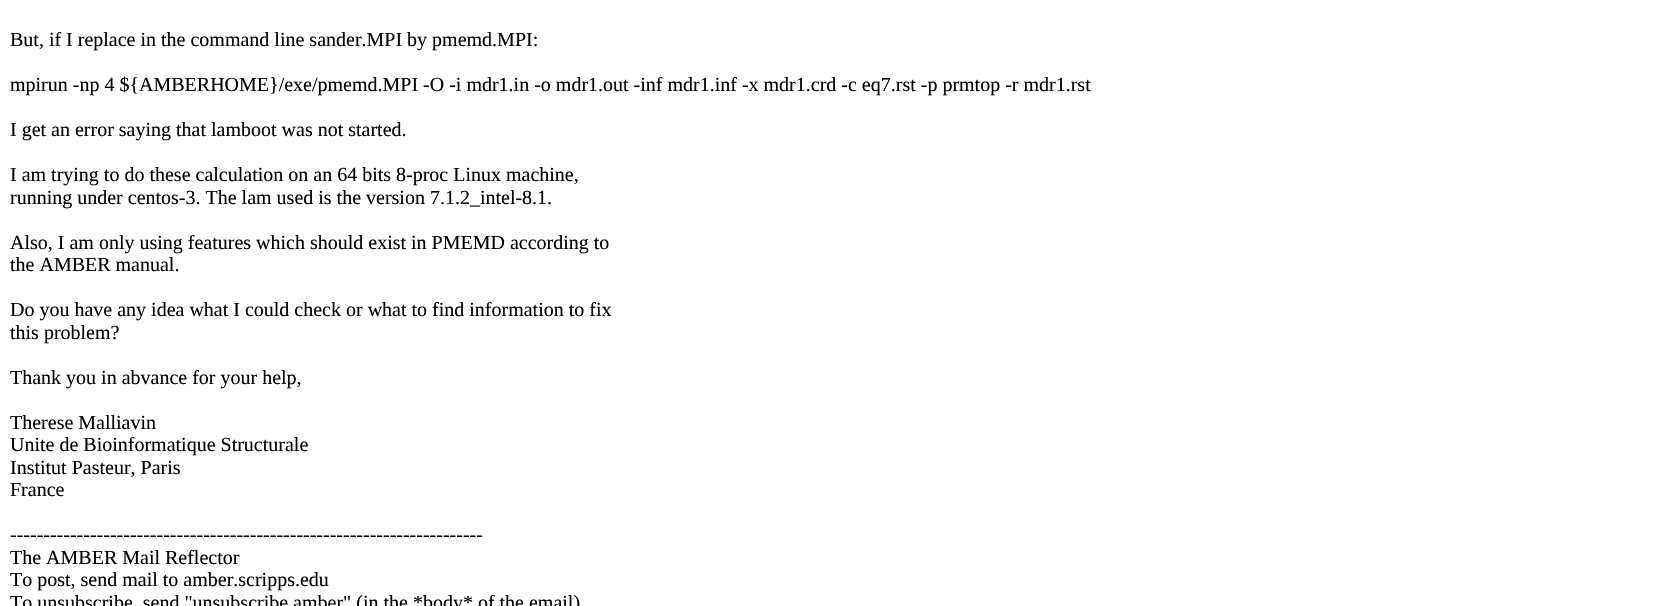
void draw(SkCanvas* canvas) {
    SkPaint paint;
    paint.setAntiAlias(true);
    canvas->clear(0xFFFFFFFF);
    SkFont font1(fontMgr->matchFamilyStyle("Liberation Serif", SkFontStyle::Normal()), 20);
    font1.setSubpixel(true);
    paint.setColor(0xFF000000);
    canvas->drawString("But, if I replace in the command line sander.MPI by pmemd.MPI:", 10, 46, font1, paint);
    canvas->drawString("mpirun -np 4 ${AMBERHOME}/exe/pmemd.MPI -O -i mdr1.in -o mdr1.out -inf mdr1.inf -x mdr1.crd -c eq7.rst -p prmtop -r mdr1.rst", 10, 91, font1, paint);
    canvas->drawString("I get an error saying that lamboot was not started.", 10, 136, font1, paint);
    canvas->drawString("I am trying to do these calculation on an 64 bits 8-proc Linux machine,", 10, 181, font1, paint);
    canvas->drawString("running under centos-3. The lam used is the version 7.1.2_intel-8.1.", 10, 204, font1, paint);
    canvas->drawString("Also, I am only using features which should exist in PMEMD according to", 10, 249, font1, paint);
    canvas->drawString("the AMBER manual.", 10, 271, font1, paint);
    canvas->drawString("Do you have any idea what I could check or what to find information to fix", 10, 316, font1, paint);
    canvas->drawString("this problem?", 10, 339, font1, paint);
    canvas->drawString("Thank you in abvance for your help,", 10, 384, font1, paint);
    canvas->drawString("Therese Malliavin", 10, 429, font1, paint);
    canvas->drawString("Unite de Bioinformatique Structurale", 10, 451, font1, paint);
    canvas->drawString("Institut Pasteur, Paris", 10, 474, font1, paint);
    canvas->drawString("France", 10, 496, font1, paint);
    canvas->drawString("-----------------------------------------------------------------------", 10, 541, font1, paint);
    canvas->drawString("The AMBER Mail Reflector", 10, 564, font1, paint);
    canvas->drawString("To post, send mail to amber.scripps.edu", 10, 586, font1, paint);
    canvas->drawString("To unsubscribe, send \"unsubscribe amber\" (in the *body* of the email)", 10, 609, font1, paint);
}
